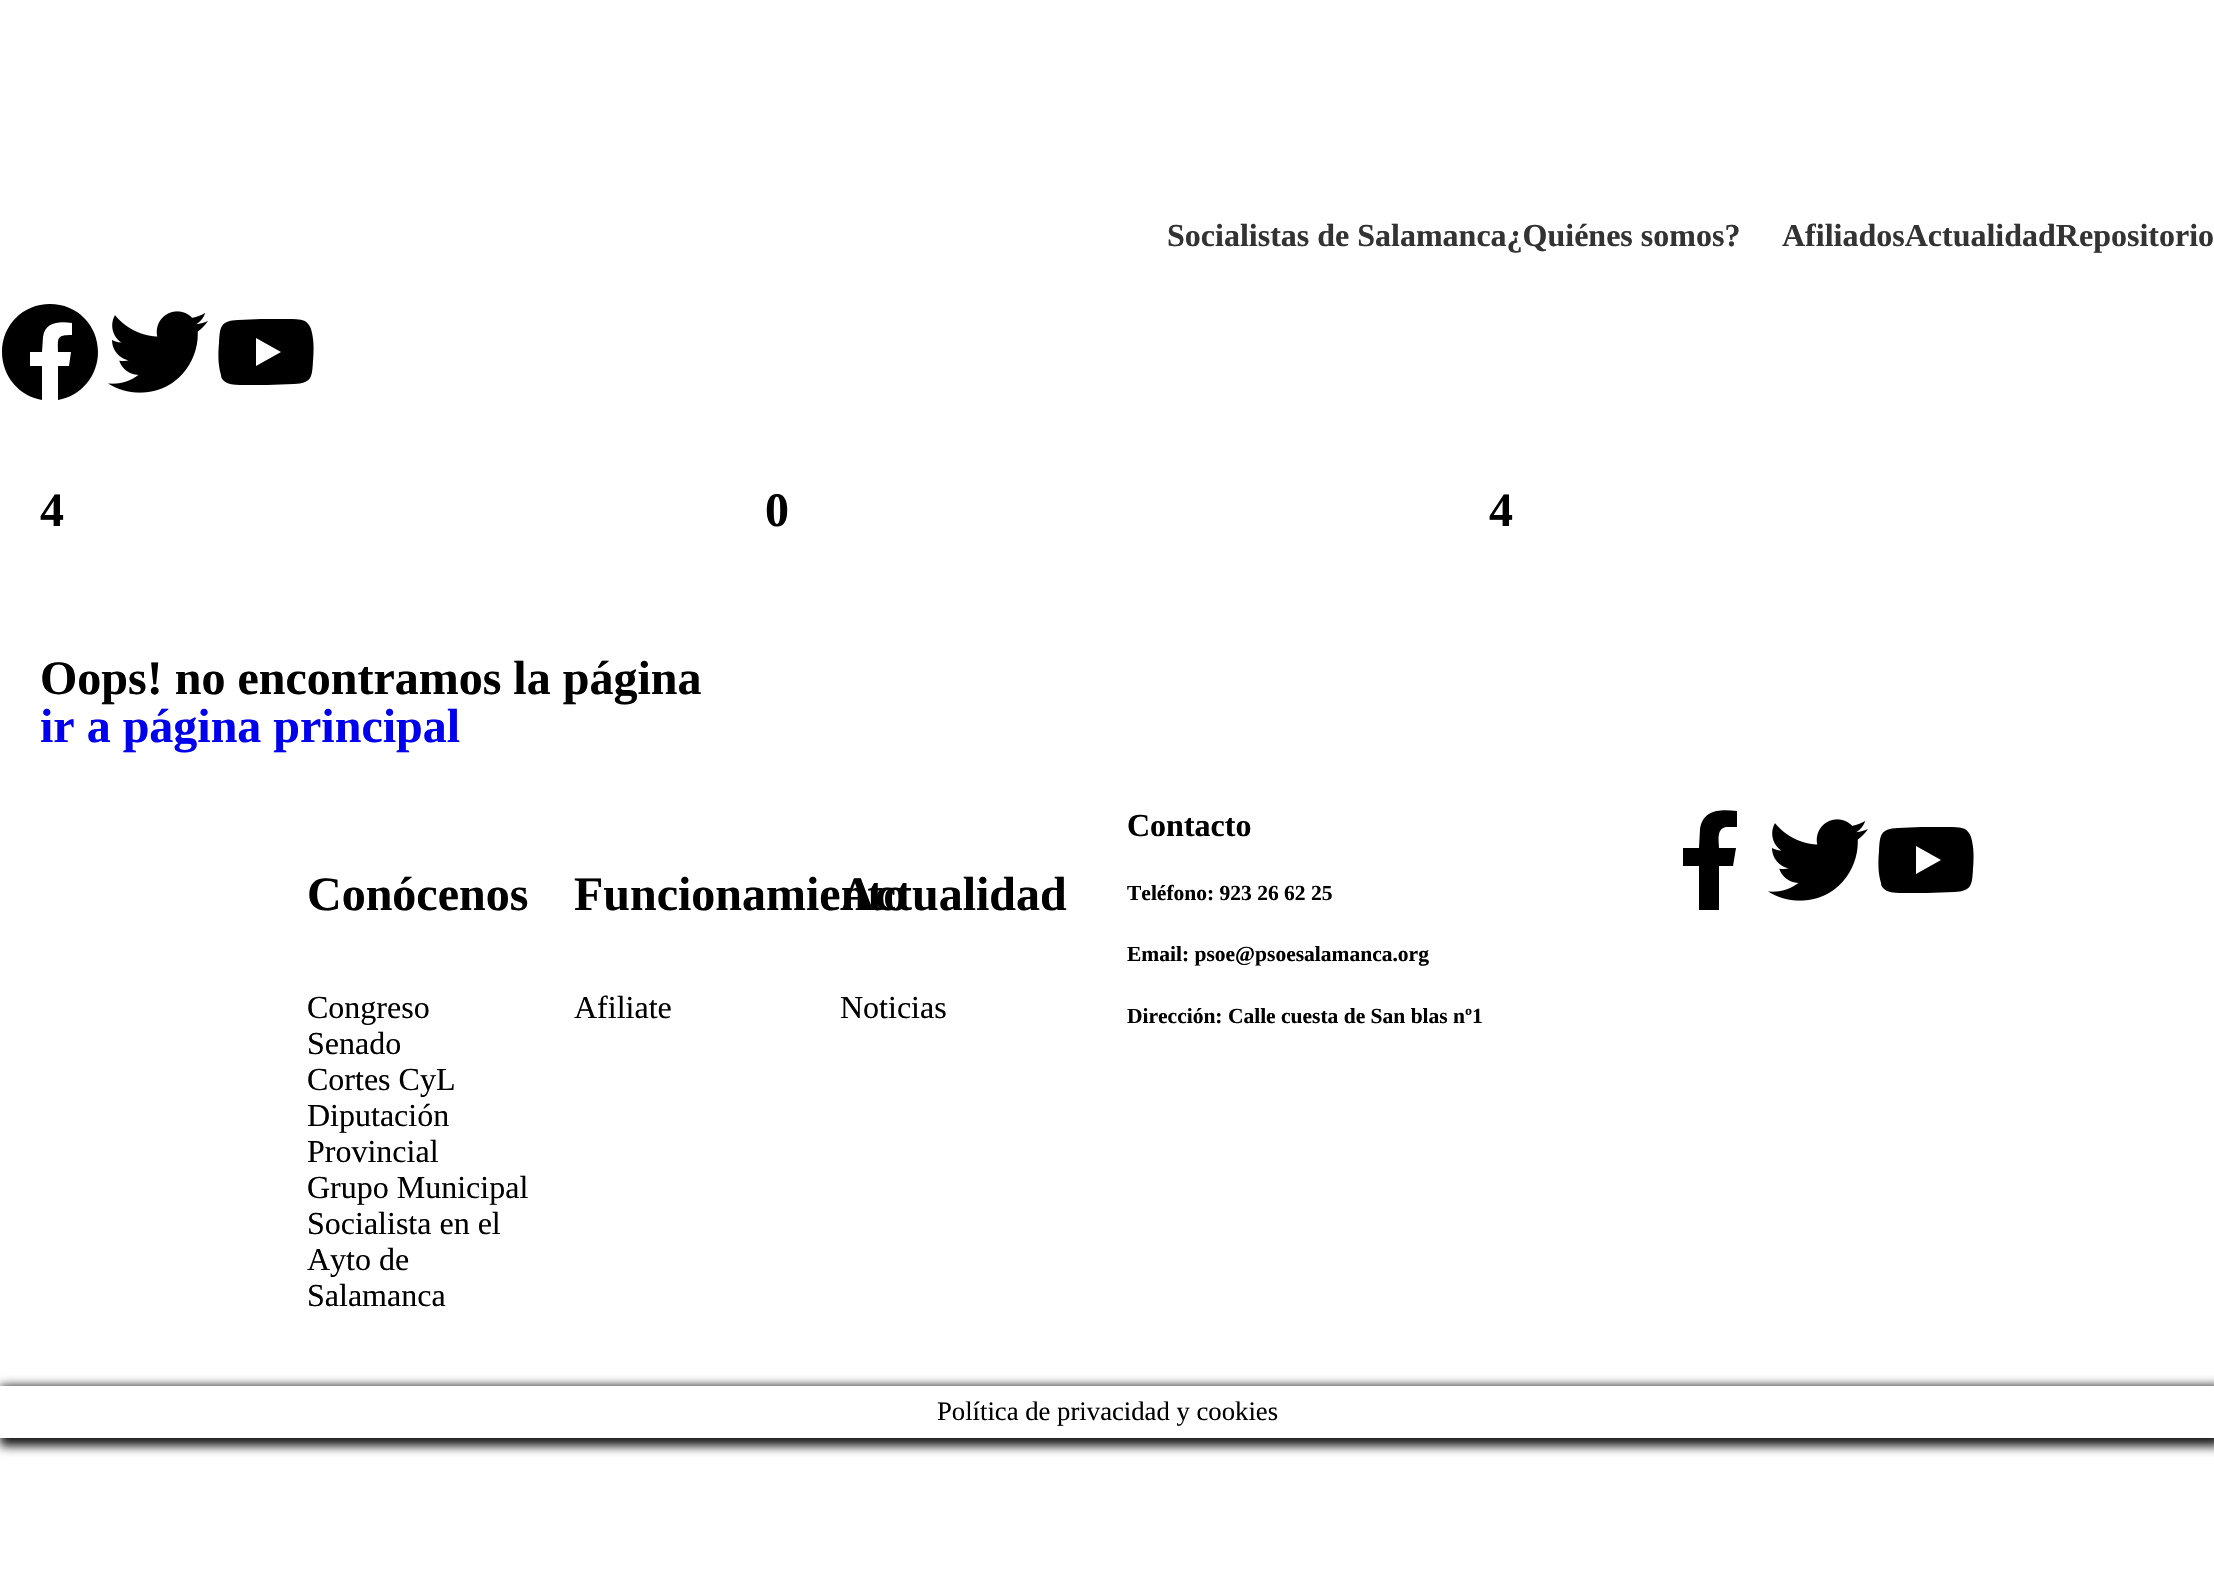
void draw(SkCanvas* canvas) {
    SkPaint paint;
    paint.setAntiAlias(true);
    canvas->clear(0xFFFFFFFF);
    SkFont font1(fontMgr->matchFamilyStyle("Liberation Serif", SkFontStyle::Bold()), 32);
    font1.setSubpixel(true);
    paint.setColor(0xFF333333);
    canvas->drawString("Socialistas de Salamanca¿Quiénes somos?", 1167, 246, font1, paint);
    canvas->drawString("AfiliadosActualidadRepositorio", 1782, 246, font1, paint);
    paint.setColor(0xFF000000);
    canvas->drawPath(SkPathBuilder().moveTo(98, 352).cubicTo(98, 325, 77, 304, 50, 304).cubicTo(23, 304, 2, 325, 2, 352).cubicTo(2, 376, 19, 396, 42, 400).lineTo(42, 366).lineTo(30, 366).lineTo(30, 352).lineTo(42, 352).lineTo(43, 337).cubicTo(45, 322, 59, 321, 72, 323).lineTo(72, 335).cubicTo(56, 335, 58, 338, 58, 352).lineTo(71, 352).lineTo(69, 366).lineTo(58, 366).lineTo(58, 400).cubicTo(81, 396, 98, 376, 98, 352).close().detach(), paint);
    canvas->drawImageRect(SkImages::DeferredFromEncodedData(SkData::MakeFromFileName("img1.png")), SkRect::MakeXYWH(108, 311, 100, 82), SkSamplingOptions());
    canvas->drawPath(SkPathBuilder().moveTo(311, 329).cubicTo(310, 326, 308, 323, 305, 321).cubicTo(300, 319, 293, 319, 288, 319).lineTo(261, 319).lineTo(238, 320).cubicTo(220, 321, 220, 327, 219, 343).cubicTo(218, 354, 218, 365, 221, 375).cubicTo(221, 379, 224, 381, 227, 383).cubicTo(232, 385, 239, 385, 244, 385).lineTo(267, 385).lineTo(294, 384).cubicTo(312, 383, 312, 377, 313, 361).cubicTo(314, 350, 314, 339, 311, 329).close().moveTo(256, 366).lineTo(256, 338).lineTo(281, 352).close().detach(), paint);
    SkFont font2(fontMgr->matchFamilyStyle("Liberation Serif", SkFontStyle::Bold()), 48);
    font2.setSubpixel(true);
    canvas->drawString("4", 40, 526, font2, paint);
    canvas->drawString("0", 765, 526, font2, paint);
    canvas->drawString("4", 1489, 526, font2, paint);
    canvas->drawString("Oops! no encontramos la página", 40, 694, font2, paint);
    paint.setColor(0xFF0000EE);
    canvas->drawString("ir a página principal", 40, 742, font2, paint);
    paint.setColor(0xFF000000);
    canvas->drawString("Conócenos", 307, 910, font2, paint);
    SkFont font3(fontMgr->matchFamilyStyle("Liberation Serif", SkFontStyle::Normal()), 32);
    font3.setSubpixel(true);
    canvas->drawString("Congreso", 307, 1018, font3, paint);
    canvas->drawString("Senado", 307, 1054, font3, paint);
    canvas->drawString("Cortes CyL", 307, 1090, font3, paint);
    canvas->drawString("Diputación", 307, 1126, font3, paint);
    canvas->drawString("Provincial", 307, 1162, font3, paint);
    canvas->drawString("Grupo Municipal", 307, 1198, font3, paint);
    canvas->drawString("Socialista en el", 307, 1234, font3, paint);
    canvas->drawString("Ayto de", 307, 1270, font3, paint);
    canvas->drawString("Salamanca", 307, 1306, font3, paint);
    canvas->drawString("Funcionamiento", 574, 910, font2, paint);
    canvas->drawString("Afiliate", 574, 1018, font3, paint);
    canvas->drawString("Actualidad", 840, 910, font2, paint);
    canvas->drawString("Noticias", 840, 1018, font3, paint);
    canvas->drawString("Contacto", 1127, 836, font1, paint);
    SkFont font4(fontMgr->matchFamilyStyle("Liberation Serif", SkFontStyle::Bold()), 21.5f);
    font4.setSubpixel(true);
    canvas->drawString("Teléfono: 923 26 62 25", 1127, 900, font4, paint);
    canvas->drawString("Email: psoe@psoesalamanca.org", 1127, 961, font4, paint);
    canvas->drawString("Dirección: Calle cuesta de San blas nº1", 1127, 1023, font4, paint);
    canvas->drawPath(SkPathBuilder().moveTo(1733, 866).lineTo(1736, 848).lineTo(1719, 848).cubicTo(1719, 841, 1716, 829, 1726, 827).lineTo(1737, 827).lineTo(1737, 811).cubicTo(1721, 809, 1703, 809, 1700, 829).lineTo(1699, 848).lineTo(1683, 848).lineTo(1683, 866).lineTo(1699, 866).lineTo(1699, 910).lineTo(1719, 910).lineTo(1719, 866).close().detach(), paint);
    canvas->drawImageRect(SkImages::DeferredFromEncodedData(SkData::MakeFromFileName("img1.png")), SkRect::MakeXYWH(1768, 819, 100, 82), SkSamplingOptions());
    canvas->drawPath(SkPathBuilder().moveTo(1971, 837).cubicTo(1970, 834, 1968, 831, 1965, 829).cubicTo(1960, 827, 1953, 827, 1948, 827).lineTo(1921, 827).lineTo(1898, 828).cubicTo(1880, 829, 1880, 835, 1879, 851).cubicTo(1878, 862, 1878, 873, 1881, 883).cubicTo(1881, 887, 1884, 889, 1887, 891).cubicTo(1892, 893, 1899, 893, 1904, 893).lineTo(1927, 893).lineTo(1954, 892).cubicTo(1972, 891, 1972, 885, 1973, 869).cubicTo(1974, 858, 1974, 847, 1971, 837).close().moveTo(1916, 874).lineTo(1916, 846).lineTo(1941, 860).close().detach(), paint);
    canvas->save();
    canvas->clipPath(SkPathBuilder(SkPathFillType::kEvenOdd).moveTo(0, 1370).lineTo(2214, 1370).lineTo(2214, 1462).lineTo(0, 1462).close().moveTo(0, 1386).lineTo(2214, 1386).lineTo(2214, 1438).lineTo(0, 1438).close().detach(), true);
    paint.setColor(0xFF161616);
    paint.setMaskFilter(SkMaskFilter::MakeBlur(kNormal_SkBlurStyle, 5));
    canvas->drawRect(SkRect::MakeXYWH(0, 1386, 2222, 60), paint);
    paint.setMaskFilter(nullptr);
    canvas->restore();
    SkFont font5(fontMgr->matchFamilyStyle("Liberation Serif", SkFontStyle::Normal()), 26.7f);
    font5.setSubpixel(true);
    paint.setColor(0xFF000000);
    canvas->drawString("Política de privacidad y cookies", 937, 1420, font5, paint);
}
